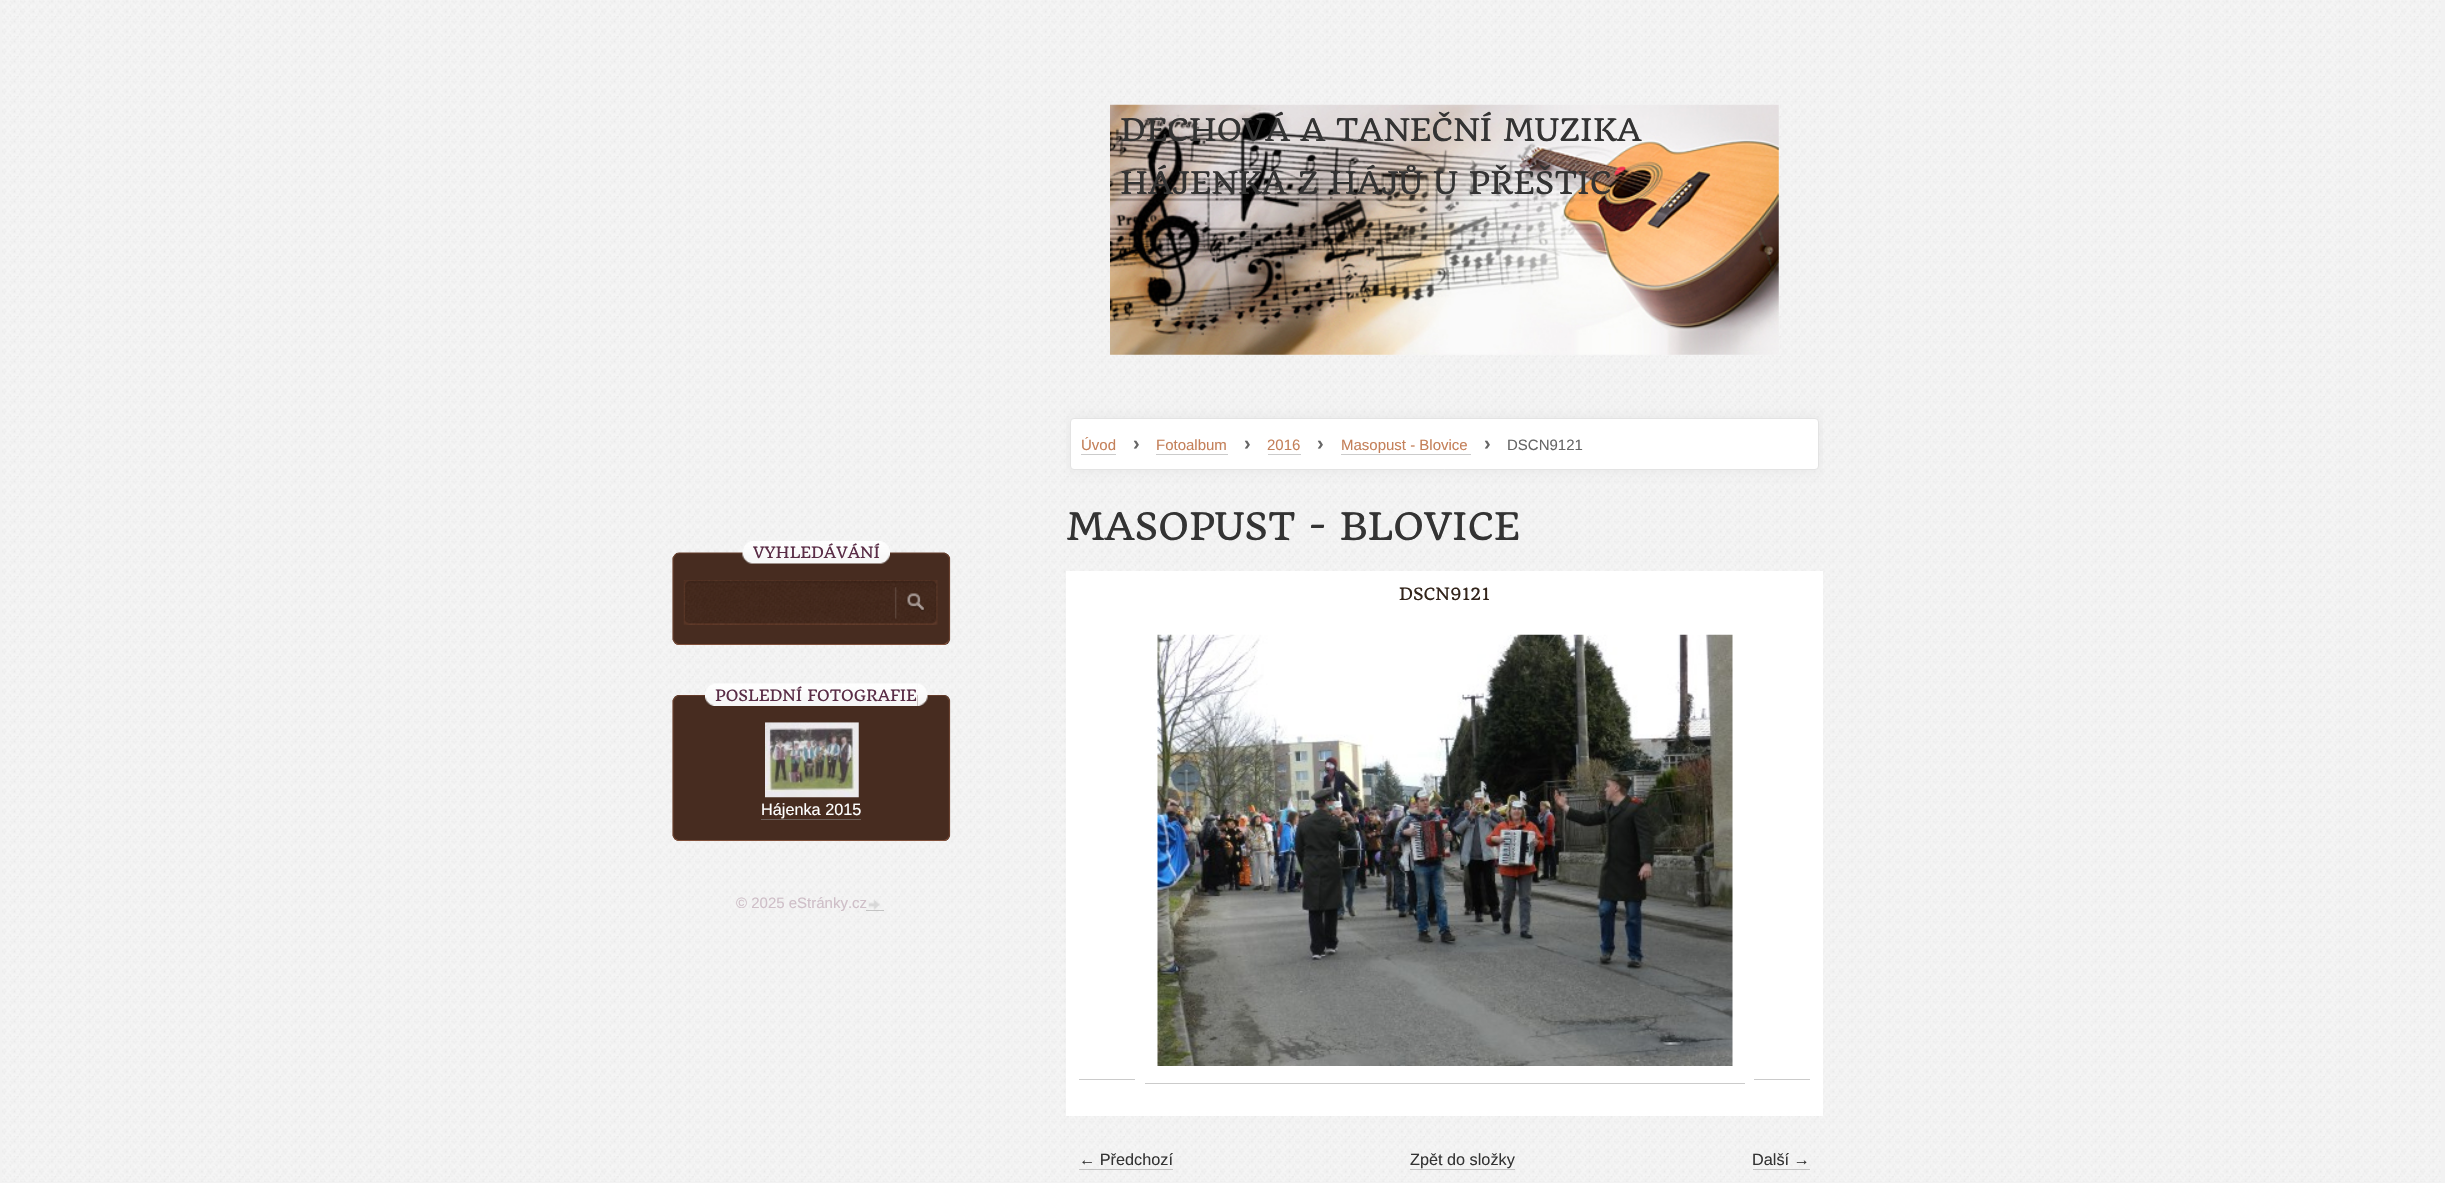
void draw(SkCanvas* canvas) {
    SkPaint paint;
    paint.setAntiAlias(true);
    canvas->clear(0xFFF2F2F2);
    canvas->drawImageRect(SkImages::DeferredFromEncodedData(SkData::MakeFromFileName("img1.png")), SkRect::MakeXYWH(2, 0, 2439, 1182), SkSamplingOptions());
    paint.setColor(0xFF472C20);
    canvas->drawRoundRect(SkRect::MakeXYWH(673, 553, 277, 92), 6, 6, paint);
    paint.setStyle(SkPaint::kStroke_Style);
    paint.setStrokeWidth(1.2f);
    paint.setColor(0xFF633B2A);
    canvas->drawPath(SkPathBuilder().moveTo(675, 555).cubicTo(676, 553.5f, 677.5f, 553, 679, 553).lineTo(944.5f, 553).lineTo(947.5f, 555).detach(), paint);
    paint.setColor(0xFF6A402D);
    canvas->drawPath(SkPathBuilder().moveTo(947.5f, 555).lineTo(949.5f, 558).lineTo(949.5f, 639.5f).lineTo(947.5f, 642.5f).detach(), paint);
    paint.setColor(0xFF82513B);
    canvas->drawPath(SkPathBuilder().moveTo(947.5f, 642.5f).lineTo(944.5f, 644.5f).lineTo(679, 644.5f).cubicTo(677.5f, 644.5f, 676, 644, 675, 642.5f).detach(), paint);
    paint.setColor(0xFF6A402D);
    canvas->drawPath(SkPathBuilder().moveTo(675, 642.5f).lineTo(673, 639.5f).lineTo(673, 558).lineTo(675, 555).detach(), paint);
    canvas->drawImageRect(SkImages::DeferredFromEncodedData(SkData::MakeFromFileName("img2.png")), SkRect::MakeXYWH(742, 541, 138, 23), SkSamplingOptions());
    SkFont font1(fontMgr->matchFamilyStyle("Quando", SkFontStyle::Normal()), 17.5f);
    font1.setSubpixel(true);
    paint.setStyle(SkPaint::kFill_Style);
    paint.setColor(0xFF592C46);
    canvas->drawString("VYHLEDÁVÁNÍ", 753, 558, font1, paint);
    canvas->drawImageRect(SkImages::DeferredFromEncodedData(SkData::MakeFromFileName("img3.png")), SkRect::MakeXYWH(880, 541, 10, 23), SkSamplingOptions());
    canvas->drawImageRect(SkImages::DeferredFromEncodedData(SkData::MakeFromFileName("img4.png")), SkRect::MakeXYWH(683, 580, 211, 45), SkSamplingOptions());
    canvas->drawImageRect(SkImages::DeferredFromEncodedData(SkData::MakeFromFileName("img5.png")), SkRect::MakeXYWH(894, 580, 44, 45), SkSamplingOptions());
    paint.setColor(0xFF472C20);
    canvas->drawRoundRect(SkRect::MakeXYWH(673, 695, 277, 146), 6, 6, paint);
    paint.setStyle(SkPaint::kStroke_Style);
    paint.setColor(0xFF633B2A);
    canvas->drawPath(SkPathBuilder().moveTo(675, 697.5f).lineTo(678, 695.5f).lineTo(944, 695.5f).cubicTo(945, 695.5f, 946.5f, 696, 947.5f, 697.5f).detach(), paint);
    paint.setColor(0xFF6A402D);
    canvas->drawPath(SkPathBuilder().moveTo(947.5f, 697.5f).lineTo(949.5f, 700.5f).lineTo(949.5f, 835.5f).lineTo(947.5f, 839).detach(), paint);
    paint.setColor(0xFF82513B);
    canvas->drawPath(SkPathBuilder().moveTo(947.5f, 839).cubicTo(946.5f, 840, 945, 840.5f, 944, 840.5f).lineTo(678, 840.5f).lineTo(675, 839).detach(), paint);
    paint.setColor(0xFF6A402D);
    canvas->drawPath(SkPathBuilder().moveTo(675, 839).lineTo(673, 835.5f).lineTo(673, 700.5f).lineTo(675, 697.5f).detach(), paint);
    canvas->drawImageRect(SkImages::DeferredFromEncodedData(SkData::MakeFromFileName("img6.png")), SkRect::MakeXYWH(705, 683, 213, 23), SkSamplingOptions());
    paint.setStyle(SkPaint::kFill_Style);
    paint.setColor(0xFF592C46);
    canvas->drawString("POSLEDNÍ FOTOGRAFIE", 715, 701, font1, paint);
    canvas->drawImageRect(SkImages::DeferredFromEncodedData(SkData::MakeFromFileName("img7.png")), SkRect::MakeXYWH(917, 683, 11, 23), SkSamplingOptions());
    canvas->drawImageRect(SkImages::DeferredFromEncodedData(SkData::MakeFromFileName("img8.png")), SkRect::MakeXYWH(765, 722, 94, 76), SkSamplingOptions());
    SkFont font2(fontMgr->matchFamilyStyle("Liberation Sans", SkFontStyle::Normal()), 16.25f);
    font2.setSubpixel(true);
    paint.setColor(0xFFFFFFFF);
    canvas->drawString("Hájenka 2015", 761, 815, font2, paint);
    paint.setColor(0xFF6F615B);
    canvas->drawRect(SkRect::MakeXYWH(761, 819, 100, 1), paint);
    SkFont font3(fontMgr->matchFamilyStyle("Liberation Sans", SkFontStyle::Normal()), 15);
    font3.setSubpixel(true);
    paint.setColor(0xFFCFBFC8);
    canvas->drawString("© 2025 eStránky.cz", 736, 908, font3, paint);
    canvas->drawImageRect(SkImages::DeferredFromEncodedData(SkData::MakeFromFileName("img9.png")), SkRect::MakeXYWH(868, 899, 12, 11), SkSamplingOptions());
    paint.setColor(0x80969696);
    canvas->drawRect(SkRect::MakeXYWH(866, 910, 18, 1), paint);
    canvas->drawImageRect(SkImages::DeferredFromEncodedData(SkData::MakeFromFileName("img10.png")), SkRect::MakeXYWH(1110, 104, 669, 251), SkSamplingOptions());
    SkFont font4(fontMgr->matchFamilyStyle("Quando", SkFontStyle::Normal()), 35);
    font4.setSubpixel(true);
    paint.setColor(0xFF333333);
    canvas->drawString("DECHOVÁ A TANEČNÍ MUZIKA", 1120, 141, font4, paint);
    canvas->drawString("HÁJENKA Z HÁJŮ U PŘEŠTIC", 1120, 194, font4, paint);
    canvas->save();
    canvas->clipRect(SkRect::MakeXYWH(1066, 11, 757, 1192));
    paint.setColor(0xFFE6E6E6);
    paint.setMaskFilter(SkMaskFilter::MakeBlur(kNormal_SkBlurStyle, 6));
    canvas->drawRoundRect(SkRect::MakeXYWH(1070, 418, 749, 52), 4, 4, paint);
    paint.setMaskFilter(nullptr);
    canvas->restore();
    paint.setColor(0xFFFFFFFF);
    canvas->drawRoundRect(SkRect::MakeXYWH(1070.5f, 418.5f, 748, 51), 3.5f, 3.5f, paint);
    paint.setStyle(SkPaint::kStroke_Style);
    paint.setStrokeWidth(1);
    paint.setColor(0xFFE3E3E3);
    canvas->drawRoundRect(SkRect::MakeXYWH(1070.5f, 418.5f, 748, 51), 3.5f, 3.5f, paint);
    paint.setStyle(SkPaint::kFill_Style);
    paint.setColor(0xFFC48059);
    canvas->drawString("Úvod", 1081, 450, font3, paint);
    paint.setColor(0xFFCBCBCB);
    canvas->drawRect(SkRect::MakeXYWH(1081, 454, 35, 1), paint);
    SkFont font5(fontMgr->matchFamilyStyle("Liberation Sans", SkFontStyle::Bold()), 20);
    font5.setSubpixel(true);
    paint.setColor(0xFF666666);
    canvas->drawString("›", 1133, 450, font5, paint);
    paint.setColor(0xFFC48059);
    canvas->drawString("Fotoalbum", 1156, 450, font3, paint);
    paint.setColor(0xFFCBCBCB);
    canvas->drawRect(SkRect::MakeXYWH(1156, 454, 72, 1), paint);
    paint.setColor(0xFF666666);
    canvas->drawString("›", 1244, 450, font5, paint);
    paint.setColor(0xFFC48059);
    canvas->drawString("2016", 1267, 450, font3, paint);
    paint.setColor(0xFFCBCBCB);
    canvas->drawRect(SkRect::MakeXYWH(1268, 454, 33, 1), paint);
    paint.setColor(0xFF666666);
    canvas->drawString("›", 1317, 450, font5, paint);
    paint.setColor(0xFFC48059);
    canvas->drawString("Masopust - Blovice", 1341, 450, font3, paint);
    paint.setColor(0xFFCBCBCB);
    canvas->drawRect(SkRect::MakeXYWH(1341, 454, 130, 1), paint);
    paint.setColor(0xFF666666);
    canvas->drawString("›", 1484, 450, font5, paint);
    canvas->drawString("DSCN9121", 1507, 450, font3, paint);
    SkFont font6(fontMgr->matchFamilyStyle("Quando", SkFontStyle::Normal()), 42.5f);
    font6.setSubpixel(true);
    paint.setColor(0xFF333333);
    canvas->drawString("MASOPUST - BLOVICE", 1066, 540, font6, paint);
    paint.setColor(0xFFFFFFFF);
    canvas->drawRect(SkRect::MakeXYWH(1066, 571, 757, 545), paint);
    SkFont font7(fontMgr->matchFamilyStyle("Quando", SkFontStyle::Normal()), 19);
    font7.setSubpixel(true);
    paint.setColor(0xFF33251B);
    canvas->drawString("DSCN9121", 1399, 600, font7, paint);
    canvas->drawImageRect(SkImages::DeferredFromEncodedData(SkData::MakeFromFileName("img11.png")), SkRect::MakeXYWH(1157, 634, 576, 432), SkSamplingOptions());
    paint.setColor(0xFFCBCBCB);
    canvas->drawRect(SkRect::MakeXYWH(1079, 1079, 56, 1), paint);
    canvas->drawRect(SkRect::MakeXYWH(1754, 1079, 56, 1), paint);
    canvas->drawRect(SkRect::MakeXYWH(1145, 1083, 600, 1), paint);
    paint.setColor(0xFF333333);
    canvas->drawString("← Předchozí", 1079, 1165, font2, paint);
    paint.setColor(0x80969696);
    canvas->drawRect(SkRect::MakeXYWH(1079, 1169, 94, 1), paint);
    paint.setColor(0xFF333333);
    canvas->drawString("Zpět do složky", 1410, 1165, font2, paint);
    paint.setColor(0x80969696);
    canvas->drawRect(SkRect::MakeXYWH(1410, 1169, 105, 1), paint);
    paint.setColor(0xFF333333);
    canvas->drawString("Další →", 1752, 1165, font2, paint);
    paint.setColor(0x80969696);
    canvas->drawRect(SkRect::MakeXYWH(1753, 1169, 57, 1), paint);
}
